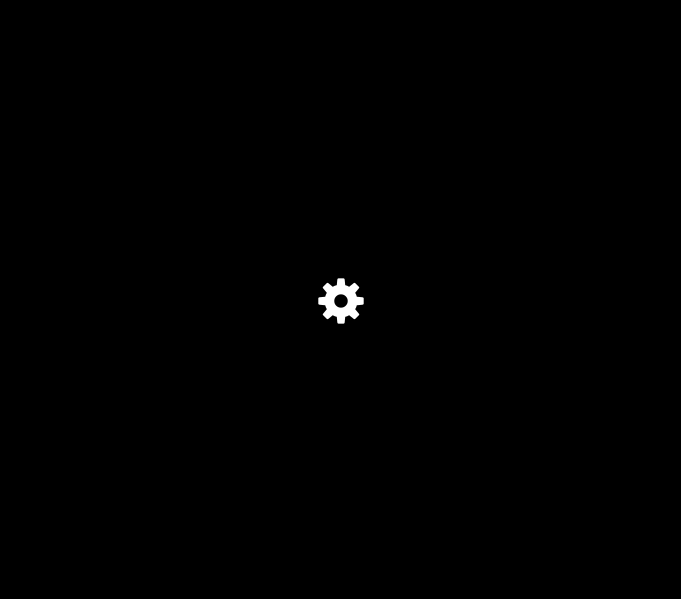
void draw(SkCanvas* canvas) {
    SkPaint paint;
    paint.setAntiAlias(true);
    canvas->clear(0xFF000000);
    canvas->drawImageRect(SkImages::DeferredFromEncodedData(SkData::MakeFromFileName("img1.png")), SkRect::MakeXYWH(318, 278, 46, 46), SkSamplingOptions());
}
